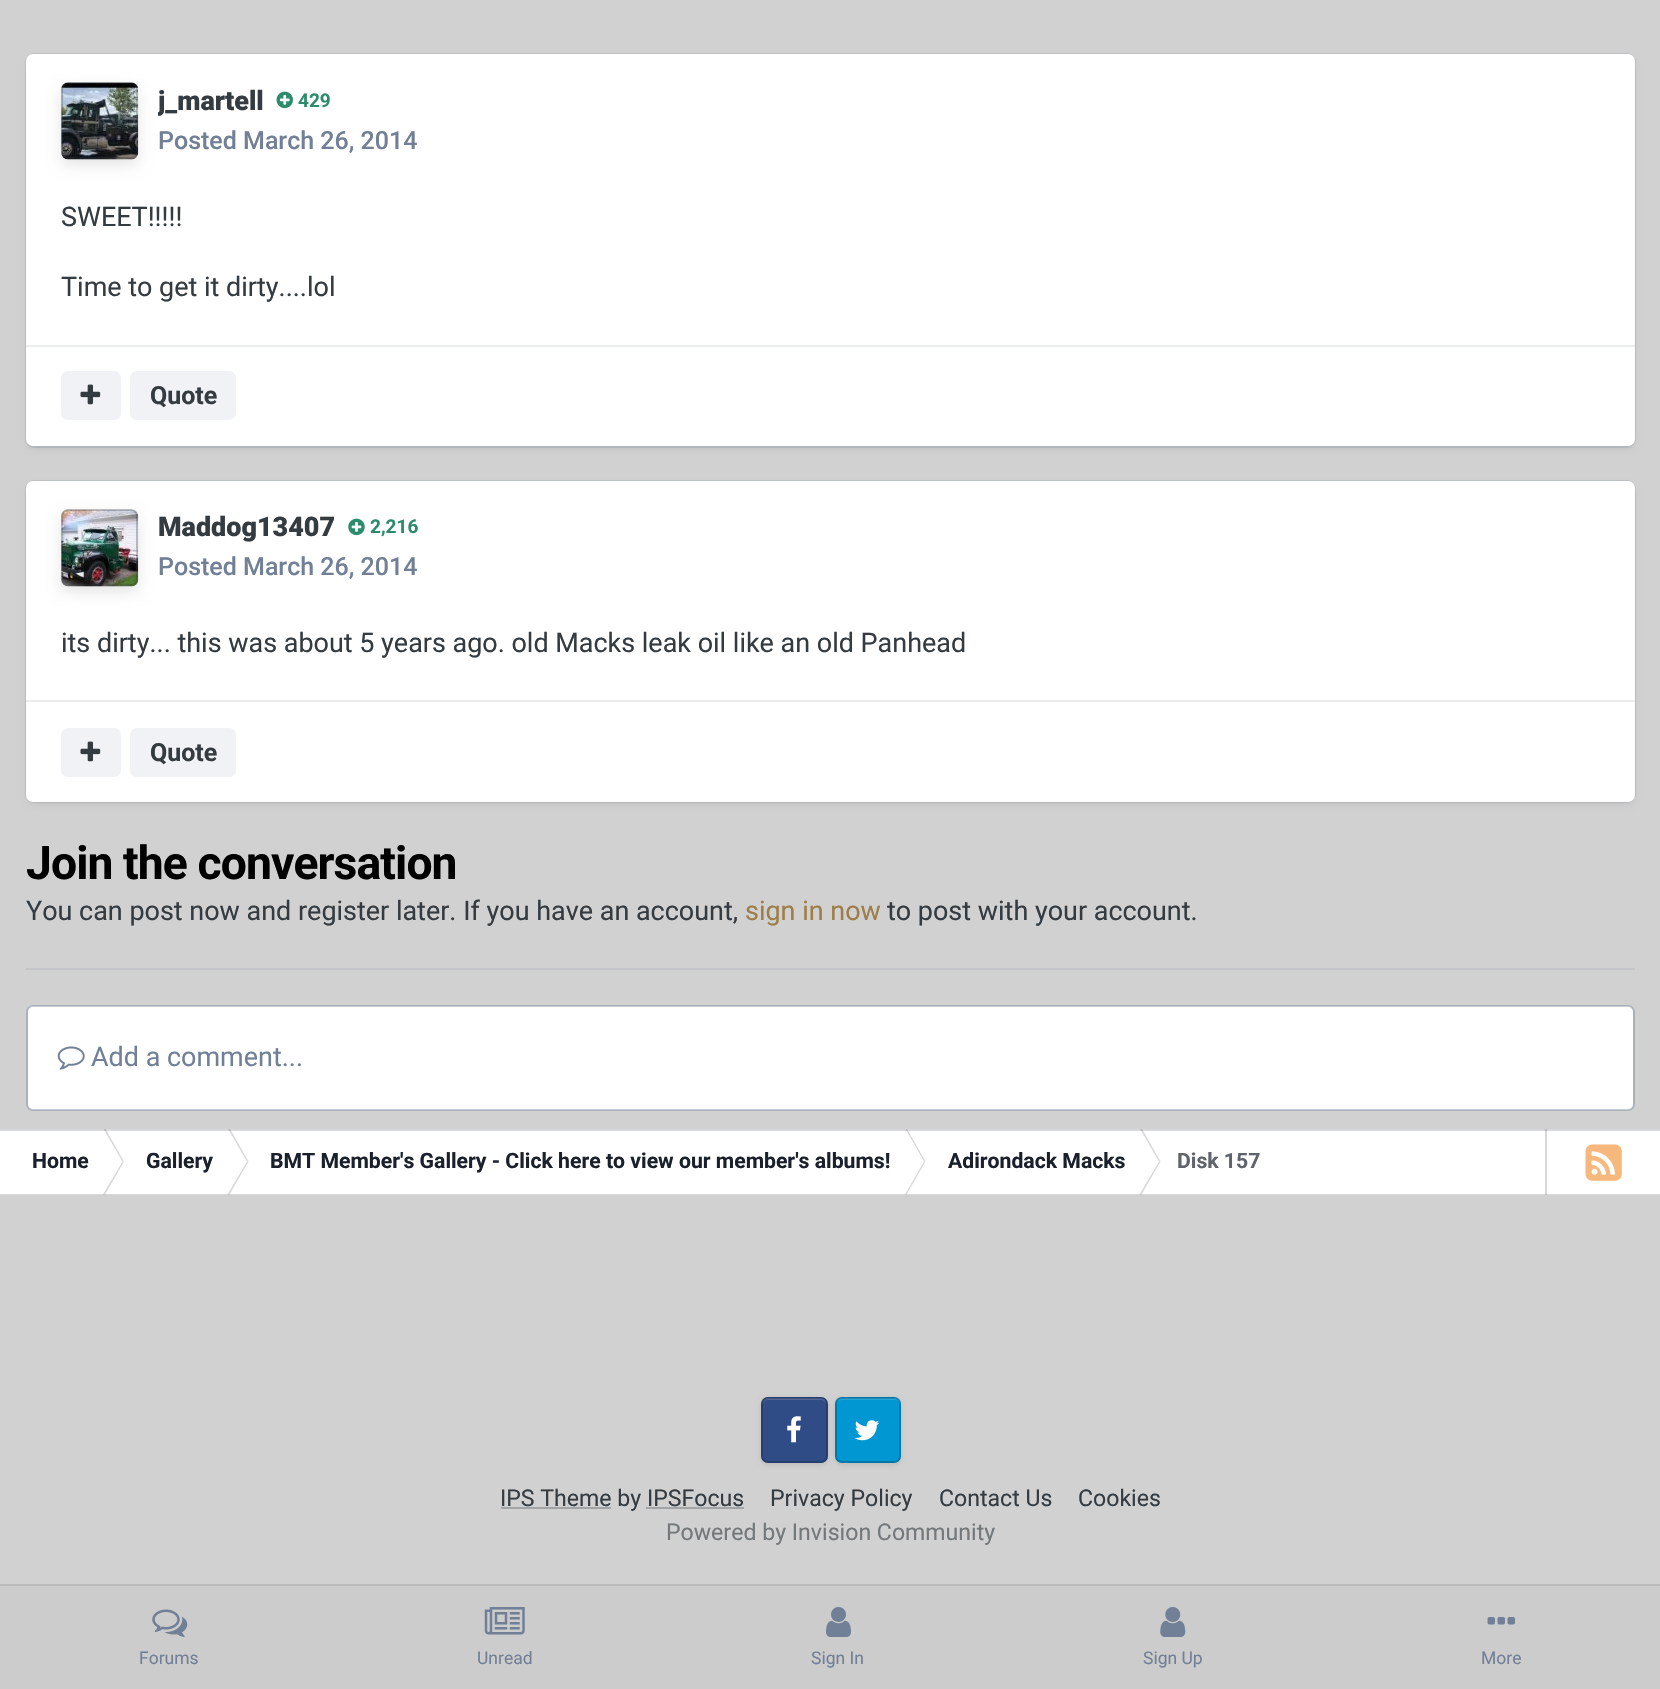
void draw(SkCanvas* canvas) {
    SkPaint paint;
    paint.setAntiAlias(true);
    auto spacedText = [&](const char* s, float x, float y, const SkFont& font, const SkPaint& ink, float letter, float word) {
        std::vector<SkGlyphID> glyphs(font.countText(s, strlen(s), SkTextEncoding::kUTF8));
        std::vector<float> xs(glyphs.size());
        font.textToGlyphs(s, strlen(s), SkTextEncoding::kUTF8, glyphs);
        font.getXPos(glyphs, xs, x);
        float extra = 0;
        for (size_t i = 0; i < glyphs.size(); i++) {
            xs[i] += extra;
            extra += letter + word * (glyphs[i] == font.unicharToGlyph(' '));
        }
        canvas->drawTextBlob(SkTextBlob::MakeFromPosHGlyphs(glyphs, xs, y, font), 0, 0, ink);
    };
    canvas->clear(0xFFD1D1D1);
    paint.setColor(0x1A000000);
    paint.setMaskFilter(SkMaskFilter::MakeBlur(kNormal_SkBlurStyle, 3.5f));
    canvas->drawRoundRect(SkRect::MakeXYWH(28, 60, 1605, 388), 5, 5, paint);
    paint.setMaskFilter(nullptr);
    paint.setStyle(SkPaint::kStroke_Style);
    paint.setStrokeWidth(2);
    paint.setColor(0x33718096);
    canvas->drawRoundRect(SkRect::MakeXYWH(26, 54, 1609, 393), 8, 8, paint);
    paint.setStyle(SkPaint::kFill_Style);
    paint.setColor(0xFFFFFFFF);
    canvas->drawRoundRect(SkRect::MakeXYWH(26, 54, 1609, 392), 7, 7, paint);
    canvas->drawImageRect(SkImages::DeferredFromEncodedData(SkData::MakeFromFileName("img1.png")), SkRect::MakeXYWH(61, 82, 78, 78), SkSamplingOptions());
    canvas->save();
    canvas->clipPath(SkPathBuilder(SkPathFillType::kEvenOdd).moveTo(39, 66).lineTo(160, 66).lineTo(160, 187).lineTo(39, 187).close().moveTo(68, 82).lineTo(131, 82).cubicTo(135, 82, 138, 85, 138, 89).lineTo(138, 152).cubicTo(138, 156, 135, 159, 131, 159).lineTo(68, 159).cubicTo(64, 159, 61, 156, 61, 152).lineTo(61, 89).cubicTo(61, 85, 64, 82, 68, 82).close().detach(), true);
    paint.setColor(0x1A000000);
    paint.setMaskFilter(SkMaskFilter::MakeBlur(kNormal_SkBlurStyle, 7));
    canvas->drawRoundRect(SkRect::MakeXYWH(61, 88, 77, 77), 7, 7, paint);
    paint.setMaskFilter(nullptr);
    canvas->restore();
    paint.setStyle(SkPaint::kStroke_Style);
    paint.setColor(0x4D353C41);
    canvas->drawRoundRect(SkRect::MakeXYWH(62, 83, 75, 75), 6, 6, paint);
    canvas->save();
    canvas->clipRect(SkRect::MakeXYWH(158, 82, 173, 41));
    SkFont font1(fontMgr->matchFamilyStyle("Roboto", SkFontStyle(900, SkFontStyle::kNormal_Width, SkFontStyle::kUpright_Slant)), 26.95f);
    font1.setSubpixel(true);
    paint.setStyle(SkPaint::kFill_Style);
    paint.setColor(0xFF353C41);
    canvas->drawString("j_martell", 158, 110, font1, paint);
    canvas->restore();
    canvas->drawImageRect(SkImages::DeferredFromEncodedData(SkData::MakeFromFileName("img2.png")), SkRect::MakeXYWH(276, 91, 17, 18), SkSamplingOptions());
    SkFont font2(fontMgr->matchFamilyStyle("Roboto", SkFontStyle::Bold()), 19);
    font2.setSubpixel(true);
    paint.setColor(0xFF2C8C69);
    canvas->drawString("429", 298, 107, font2, paint);
    SkFont font3(fontMgr->matchFamilyStyle("Roboto", SkFontStyle(500, SkFontStyle::kNormal_Width, SkFontStyle::kUpright_Slant)), 25);
    font3.setSubpixel(true);
    paint.setColor(0xFF718096);
    canvas->drawString("Posted March 26, 2014", 158, 149, font3, paint);
    SkFont font4(fontMgr->matchFamilyStyle("Roboto", SkFontStyle::Normal()), 26.95f);
    font4.setSubpixel(true);
    paint.setColor(0xFF353C41);
    canvas->drawString("SWEET!!!!!", 61, 226, font4, paint);
    canvas->drawString("Time to get it dirty....lol", 61, 296, font4, paint);
    paint.setColor(0xFFEBECEC);
    canvas->drawRect(SkRect::MakeXYWH(26, 345, 1609, 2), paint);
    paint.setColor(0xFFF1F2F5);
    canvas->drawRoundRect(SkRect::MakeXYWH(61, 371, 60, 49), 7, 7, paint);
    canvas->drawImageRect(SkImages::DeferredFromEncodedData(SkData::MakeFromFileName("img3.png")), SkRect::MakeXYWH(80, 384, 21, 21), SkSamplingOptions());
    canvas->drawRoundRect(SkRect::MakeXYWH(130, 371, 106, 49), 7, 7, paint);
    SkFont font5(fontMgr->matchFamilyStyle("Roboto", SkFontStyle::Bold()), 25);
    font5.setSubpixel(true);
    paint.setColor(0xFF353C41);
    canvas->drawString("Quote", 150, 404, font5, paint);
    paint.setColor(0x1A000000);
    paint.setMaskFilter(SkMaskFilter::MakeBlur(kNormal_SkBlurStyle, 3.5f));
    canvas->drawRoundRect(SkRect::MakeXYWH(28, 487, 1605, 316), 5, 5, paint);
    paint.setMaskFilter(nullptr);
    paint.setStyle(SkPaint::kStroke_Style);
    paint.setColor(0x33718096);
    canvas->drawRoundRect(SkRect::MakeXYWH(26, 481, 1609, 321), 8, 8, paint);
    paint.setStyle(SkPaint::kFill_Style);
    paint.setColor(0xFFFFFFFF);
    canvas->drawRoundRect(SkRect::MakeXYWH(26, 481, 1609, 321), 7, 7, paint);
    canvas->drawImageRect(SkImages::DeferredFromEncodedData(SkData::MakeFromFileName("img4.png")), SkRect::MakeXYWH(61, 509, 78, 78), SkSamplingOptions());
    canvas->save();
    canvas->clipPath(SkPathBuilder(SkPathFillType::kEvenOdd).moveTo(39, 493).lineTo(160, 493).lineTo(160, 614).lineTo(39, 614).close().moveTo(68, 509).lineTo(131, 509).cubicTo(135, 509, 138, 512, 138, 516).lineTo(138, 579).cubicTo(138, 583, 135, 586, 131, 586).lineTo(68, 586).cubicTo(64, 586, 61, 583, 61, 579).lineTo(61, 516).cubicTo(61, 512, 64, 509, 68, 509).close().detach(), true);
    paint.setColor(0x1A000000);
    paint.setMaskFilter(SkMaskFilter::MakeBlur(kNormal_SkBlurStyle, 7));
    canvas->drawRoundRect(SkRect::MakeXYWH(61, 515, 77, 77), 7, 7, paint);
    paint.setMaskFilter(nullptr);
    canvas->restore();
    paint.setStyle(SkPaint::kStroke_Style);
    paint.setColor(0x4D353C41);
    canvas->drawRoundRect(SkRect::MakeXYWH(62, 510, 75, 75), 6, 6, paint);
    paint.setStyle(SkPaint::kFill_Style);
    paint.setColor(0xFF353C41);
    canvas->drawString("Maddog13407", 158, 536, font1, paint);
    canvas->drawImageRect(SkImages::DeferredFromEncodedData(SkData::MakeFromFileName("img5.png")), SkRect::MakeXYWH(348, 518, 17, 18), SkSamplingOptions());
    paint.setColor(0xFF2C8C69);
    canvas->drawString("2,216", 370, 533, font2, paint);
    paint.setColor(0xFF718096);
    canvas->drawString("Posted March 26, 2014", 158, 575, font3, paint);
    paint.setColor(0xFF353C41);
    canvas->drawString("its dirty... this was about 5 years ago. old Macks leak oil like an old Panhead", 61, 652, font4, paint);
    paint.setColor(0xFFEBECEC);
    canvas->drawRect(SkRect::MakeXYWH(26, 700, 1609, 2), paint);
    paint.setColor(0xFFF1F2F5);
    canvas->drawRoundRect(SkRect::MakeXYWH(61, 728, 60, 49), 7, 7, paint);
    canvas->drawImageRect(SkImages::DeferredFromEncodedData(SkData::MakeFromFileName("img3.png")), SkRect::MakeXYWH(80, 741, 21, 21), SkSamplingOptions());
    canvas->drawRoundRect(SkRect::MakeXYWH(130, 728, 106, 49), 7, 7, paint);
    paint.setColor(0xFF353C41);
    canvas->drawString("Quote", 150, 761, font5, paint);
    paint.setColor(0xFFC3C5C8);
    canvas->drawRect(SkRect::MakeXYWH(26, 968, 1609, 2), paint);
    SkFont font6(fontMgr->matchFamilyStyle("Roboto", SkFontStyle::Bold()), 46.25f);
    font6.setSubpixel(true);
    paint.setColor(0xFF000000);
    spacedText("Join the conversation", 26, 879, font6, paint, -0.9f, 0);
    paint.setColor(0xFF353C41);
    canvas->drawString("You can post now and register later. If you have an account,", 26, 920, font4, paint);
    paint.setColor(0xFF9D7E49);
    canvas->drawString("sign in now", 745, 920, font4, paint);
    paint.setColor(0xFF353C41);
    canvas->drawString("to post with your account.", 887, 920, font4, paint);
    paint.setColor(0xFFFFFFFF);
    canvas->drawRoundRect(SkRect::MakeXYWH(28, 1006, 1605, 104), 5, 5, paint);
    paint.setStyle(SkPaint::kStroke_Style);
    paint.setColor(0x66718096);
    canvas->drawRoundRect(SkRect::MakeXYWH(27, 1006, 1607, 104), 6, 6, paint);
    canvas->drawImageRect(SkImages::DeferredFromEncodedData(SkData::MakeFromFileName("img6.png")), SkRect::MakeXYWH(57, 1046, 28, 24), SkSamplingOptions());
    paint.setStyle(SkPaint::kFill_Style);
    paint.setColor(0xFF718096);
    canvas->drawString("Add a comment...", 91, 1066, font4, paint);
    paint.setColor(0xFFFFFFFF);
    canvas->drawRect(SkRect::MakeXYWH(0, 1129, 1660, 66), paint);
    canvas->save();
    canvas->clipRect(SkRect::MakeXYWH(0, 1129, 1545, 66));
    paint.setColor(0xFFD7D8D9);
    canvas->drawPath(SkPathBuilder().moveTo(103, 1128).lineTo(105, 1128).lineTo(124, 1161.5f).lineTo(122.5f, 1161.5f).close().detach(), paint);
    canvas->drawPath(SkPathBuilder().moveTo(227.5f, 1128).lineTo(229.5f, 1128).lineTo(248.5f, 1161.5f).lineTo(247, 1161.5f).close().detach(), paint);
    canvas->restore();
    canvas->drawPath(SkPathBuilder().moveTo(905, 1128).lineTo(906.5f, 1128).lineTo(925.5f, 1161.5f).lineTo(924, 1161.5f).close().detach(), paint);
    canvas->save();
    canvas->clipRect(SkRect::MakeXYWH(0, 1129, 1545, 66));
    canvas->drawPath(SkPathBuilder().moveTo(1139.5f, 1128).lineTo(1141.5f, 1128).lineTo(1160.5f, 1161.5f).lineTo(1159, 1161.5f).close().detach(), paint);
    canvas->restore();
    canvas->drawRect(SkRect::MakeXYWH(1545, 1129, 2, 66), paint);
    paint.setColor(0x33353C41);
    canvas->drawRect(SkRect::MakeXYWH(0, 1129, 1660, 2), paint);
    paint.setColor(0xFFD7D8D9);
    canvas->drawPath(SkPathBuilder().moveTo(103, 1194.5f).lineTo(105, 1194.5f).lineTo(124, 1161.5f).lineTo(122.5f, 1161.5f).close().detach(), paint);
    canvas->drawPath(SkPathBuilder().moveTo(227.5f, 1194.5f).lineTo(229.5f, 1194.5f).lineTo(248.5f, 1161.5f).lineTo(247, 1161.5f).close().detach(), paint);
    canvas->drawPath(SkPathBuilder().moveTo(905, 1194.5f).lineTo(906.5f, 1194.5f).lineTo(925.5f, 1161.5f).lineTo(924, 1161.5f).close().detach(), paint);
    canvas->drawPath(SkPathBuilder().moveTo(1139.5f, 1194.5f).lineTo(1141.5f, 1194.5f).lineTo(1160.5f, 1161.5f).lineTo(1159, 1161.5f).close().detach(), paint);
    paint.setColor(0x33353C41);
    canvas->drawRect(SkRect::MakeXYWH(0, 1194, 1660, 1), paint);
    SkFont font7(fontMgr->matchFamilyStyle("Roboto", SkFontStyle::Bold()), 21.2f);
    font7.setSubpixel(true);
    paint.setColor(0xFF1A202C);
    canvas->drawString("Home", 32, 1168, font7, paint);
    canvas->drawString("Gallery", 146, 1168, font7, paint);
    canvas->drawString("BMT Member's Gallery - Click here to view our member's albums!", 270, 1168, font7, paint);
    canvas->drawString("Adirondack Macks", 948, 1168, font7, paint);
    paint.setColor(0xFF5F636B);
    canvas->drawString("Disk 157", 1177, 1168, font7, paint);
    canvas->drawImageRect(SkImages::DeferredFromEncodedData(SkData::MakeFromFileName("img7.png")), SkRect::MakeXYWH(1585, 1144, 37, 37), SkSamplingOptions());
    paint.setColor(0x1A000000);
    paint.setMaskFilter(SkMaskFilter::MakeBlur(kNormal_SkBlurStyle, 2.5f));
    canvas->drawRoundRect(SkRect::MakeXYWH(761, 1398, 67, 67), 7, 7, paint);
    paint.setMaskFilter(nullptr);
    paint.setColor(0xFF304C87);
    canvas->drawRoundRect(SkRect::MakeXYWH(761, 1397, 67, 66), 7, 7, paint);
    paint.setColor(0xFF4F6799);
    canvas->drawPath(SkPathBuilder().moveTo(768, 1400).cubicTo(765, 1400, 763, 1402, 763, 1405).cubicTo(763, 1396, 769, 1398, 777, 1398).lineTo(812, 1398).cubicTo(820, 1398, 826, 1396, 826, 1405).cubicTo(826, 1402, 824, 1400, 821, 1400).close().detach(), paint);
    canvas->drawImageRect(SkImages::DeferredFromEncodedData(SkData::MakeFromFileName("img8.png")), SkRect::MakeXYWH(787, 1416, 14, 27), SkSamplingOptions());
    paint.setStyle(SkPaint::kStroke_Style);
    paint.setColor(0x33000000);
    canvas->drawRoundRect(SkRect::MakeXYWH(762, 1398, 65, 64), 6, 6, paint);
    paint.setStyle(SkPaint::kFill_Style);
    paint.setColor(0x1A000000);
    paint.setMaskFilter(SkMaskFilter::MakeBlur(kNormal_SkBlurStyle, 2.5f));
    canvas->drawRoundRect(SkRect::MakeXYWH(835, 1398, 66, 67), 7, 7, paint);
    paint.setMaskFilter(nullptr);
    paint.setColor(0xFF0097D3);
    canvas->drawRoundRect(SkRect::MakeXYWH(835, 1397, 66, 66), 7, 7, paint);
    paint.setColor(0xFF26A7DA);
    canvas->drawPath(SkPathBuilder().moveTo(842, 1400).cubicTo(840, 1400, 838, 1401, 837, 1402).cubicTo(837, 1400, 840, 1398, 842, 1398).lineTo(895, 1398).cubicTo(898, 1398, 900, 1400, 900, 1403).lineTo(900, 1405).cubicTo(900, 1402, 897, 1400, 894, 1400).close().detach(), paint);
    canvas->drawImageRect(SkImages::DeferredFromEncodedData(SkData::MakeFromFileName("img9.png")), SkRect::MakeXYWH(854, 1420, 26, 21), SkSamplingOptions());
    paint.setStyle(SkPaint::kStroke_Style);
    paint.setColor(0x33000000);
    canvas->drawRoundRect(SkRect::MakeXYWH(836, 1398, 64, 64), 6, 6, paint);
    paint.setStyle(SkPaint::kFill_Style);
    paint.setColor(0xFFA2A4A6);
    canvas->drawRect(SkRect::MakeXYWH(501, 1507, 110, 2), paint);
    SkFont font8(fontMgr->matchFamilyStyle("Roboto", SkFontStyle::Normal()), 23.1f);
    font8.setSubpixel(true);
    paint.setColor(0xFF353C41);
    canvas->drawString("IPS Theme by IPSFocus", 500, 1506, font8, paint);
    paint.setColor(0xFFA2A4A6);
    canvas->drawRect(SkRect::MakeXYWH(646, 1507, 98, 2), paint);
    paint.setColor(0xFF353C41);
    canvas->drawString("Privacy Policy", 770, 1506, font8, paint);
    canvas->drawString("Contact Us", 939, 1506, font8, paint);
    canvas->drawString("Cookies", 1078, 1506, font8, paint);
    paint.setColor(0xFF73787B);
    canvas->drawString("Powered by Invision Community", 666, 1540, font8, paint);
    paint.setColor(0xFFBCBCBC);
    canvas->drawPath(SkPathBuilder().moveTo(0, 1584).lineTo(0, 1586).lineTo(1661, 1586).lineTo(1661, 1689).lineTo(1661, 1584).close().detach(), paint);
    paint.setColor(0xFFCCCCCC);
    canvas->drawRect(SkRect::MakeXYWH(0, 1586, 1660, 103), paint);
    canvas->drawImageRect(SkImages::DeferredFromEncodedData(SkData::MakeFromFileName("img10.png")), SkRect::MakeXYWH(152, 1609, 36, 28), SkSamplingOptions());
    SkFont font9(fontMgr->matchFamilyStyle("Roboto", SkFontStyle::Normal()), 17.5f);
    font9.setSubpixel(true);
    paint.setColor(0xFF718096);
    canvas->drawString("Forums", 139, 1664, font9, paint);
    canvas->drawImageRect(SkImages::DeferredFromEncodedData(SkData::MakeFromFileName("img11.png")), SkRect::MakeXYWH(484, 1607, 41, 28), SkSamplingOptions());
    canvas->drawString("Unread", 477, 1664, font9, paint);
    canvas->drawImageRect(SkImages::DeferredFromEncodedData(SkData::MakeFromFileName("img12.png")), SkRect::MakeXYWH(826, 1607, 25, 30), SkSamplingOptions());
    canvas->drawString("Sign In", 811, 1664, font9, paint);
    canvas->drawImageRect(SkImages::DeferredFromEncodedData(SkData::MakeFromFileName("img13.png")), SkRect::MakeXYWH(1160, 1607, 26, 30), SkSamplingOptions());
    canvas->drawString("Sign Up", 1143, 1664, font9, paint);
    canvas->drawImageRect(SkImages::DeferredFromEncodedData(SkData::MakeFromFileName("img14.png")), SkRect::MakeXYWH(1487, 1617, 28, 8), SkSamplingOptions());
    canvas->drawString("More", 1481, 1664, font9, paint);
}
